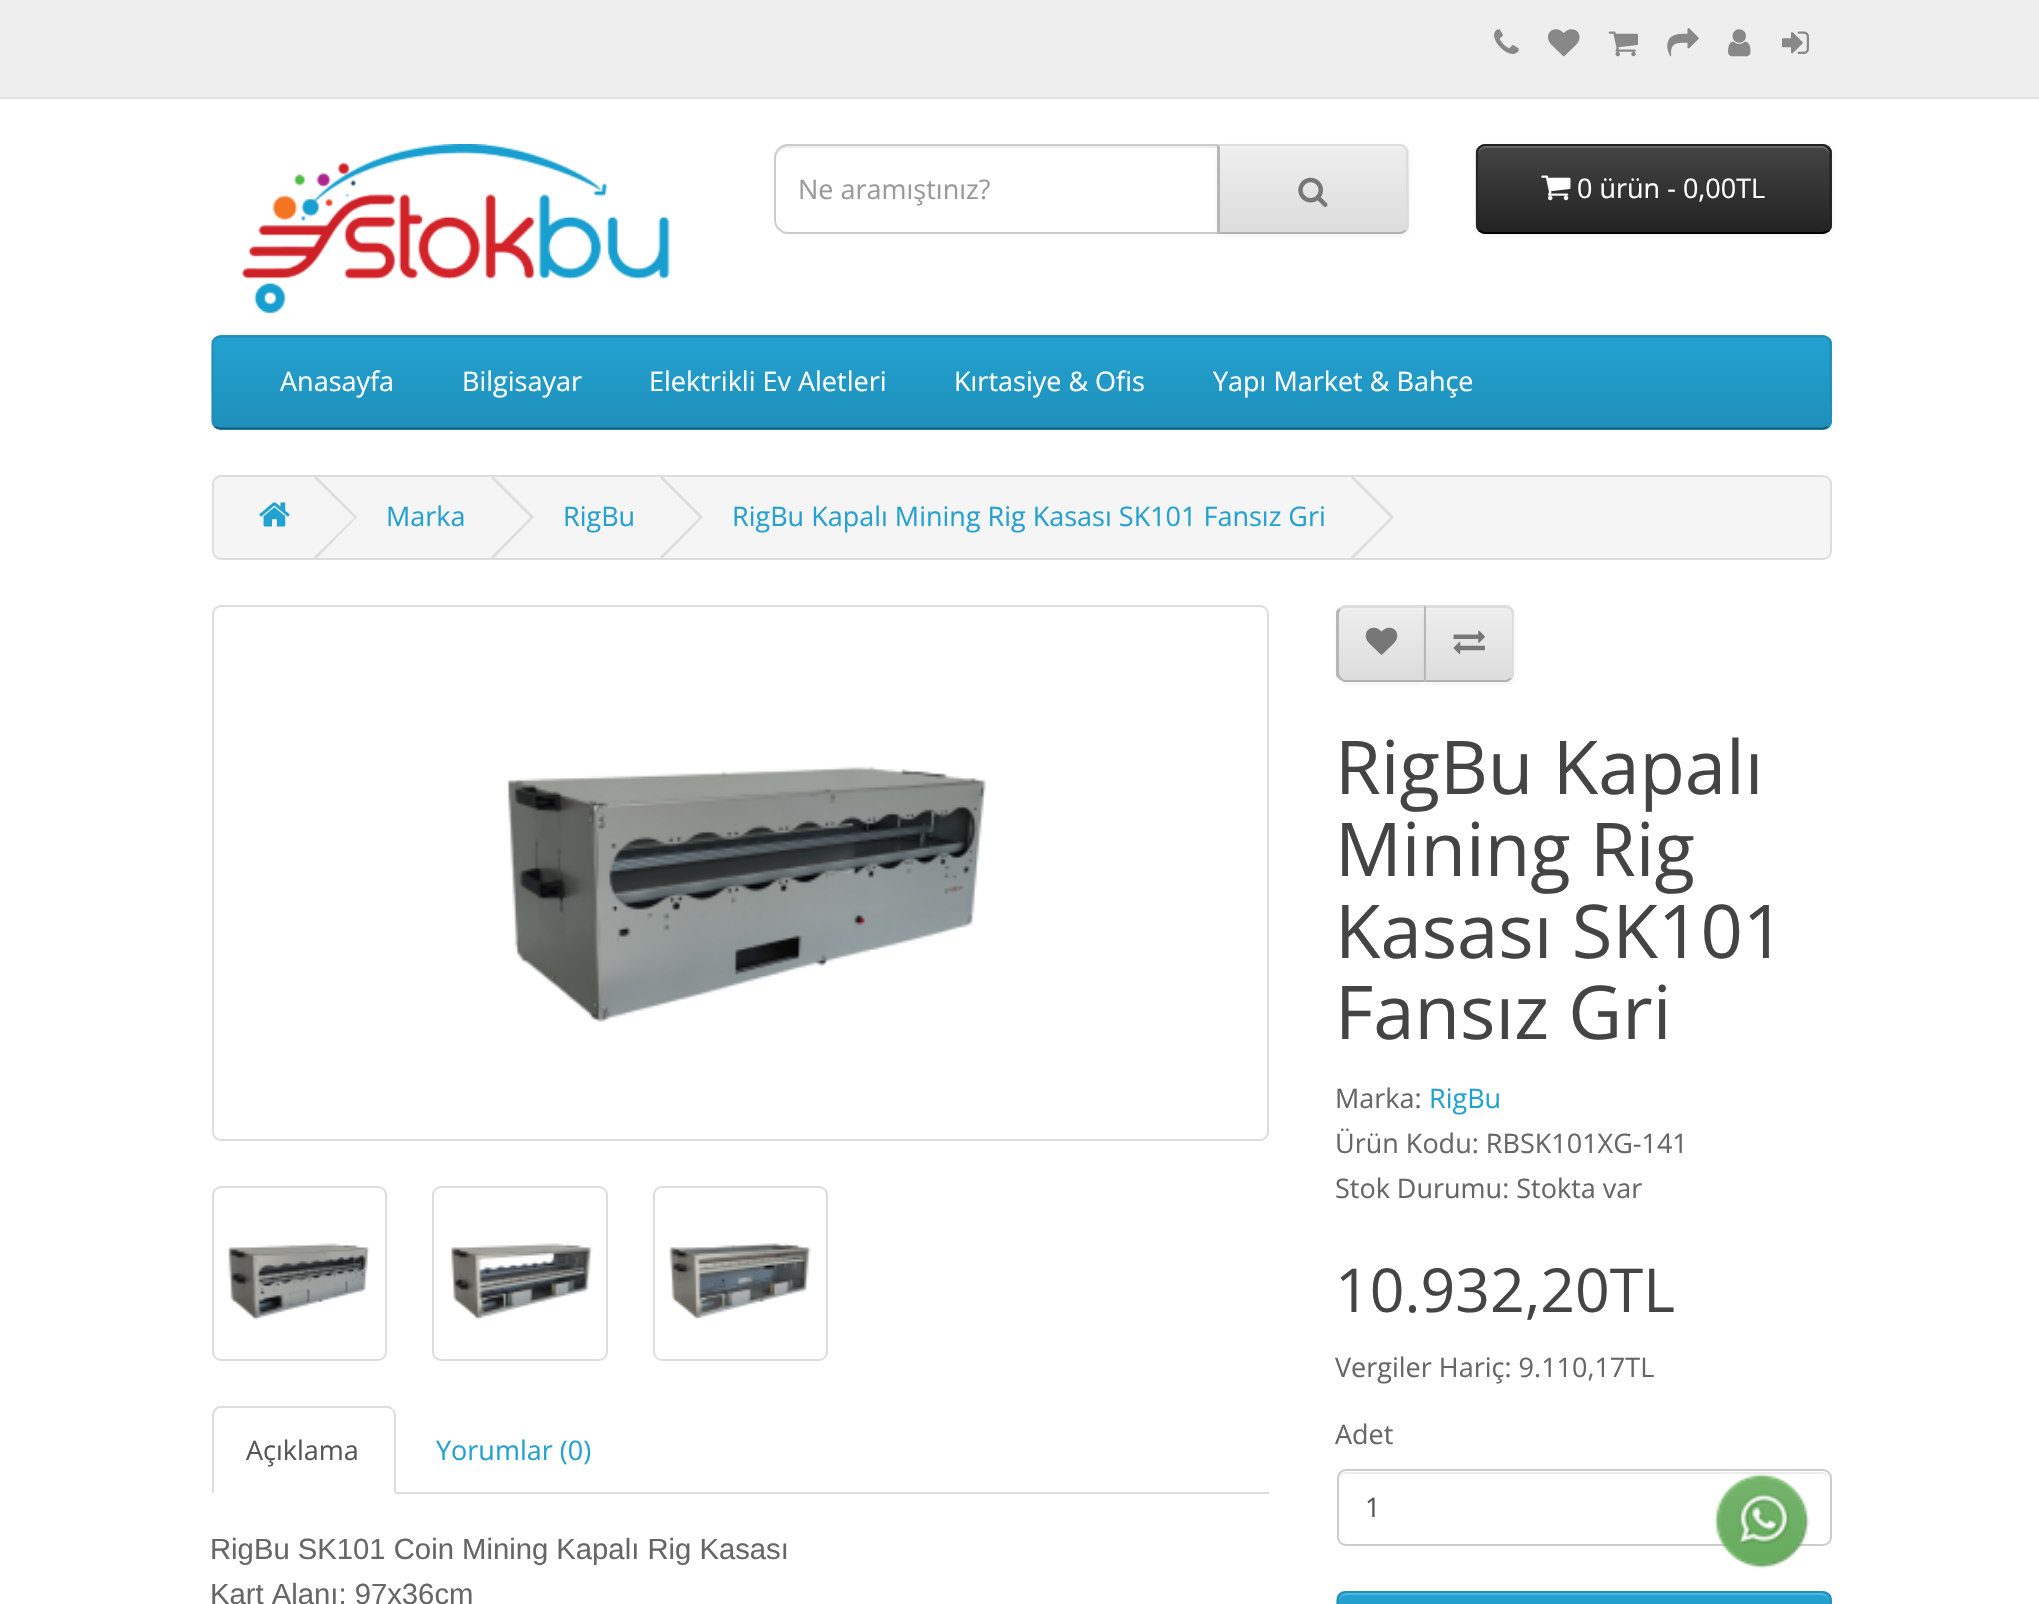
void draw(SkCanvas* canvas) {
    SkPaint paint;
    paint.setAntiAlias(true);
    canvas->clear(0xFFFFFFFF);
    paint.setColor(0xFFEEEEEE);
    canvas->drawRect(SkRect::MakeXYWH(0, 0, 2039, 97), paint);
    paint.setColor(0xFFE2E2E2);
    canvas->drawRect(SkRect::MakeXYWH(0, 97, 2039, 2), paint);
    canvas->drawImageRect(SkImages::DeferredFromEncodedData(SkData::MakeFromFileName("img1.png")), SkRect::MakeXYWH(1494, 29, 25, 25), SkSamplingOptions());
    canvas->drawImageRect(SkImages::DeferredFromEncodedData(SkData::MakeFromFileName("img2.png")), SkRect::MakeXYWH(1548, 29, 32, 28), SkSamplingOptions());
    canvas->drawImageRect(SkImages::DeferredFromEncodedData(SkData::MakeFromFileName("img3.png")), SkRect::MakeXYWH(1608, 31, 30, 26), SkSamplingOptions());
    canvas->drawImageRect(SkImages::DeferredFromEncodedData(SkData::MakeFromFileName("img4.png")), SkRect::MakeXYWH(1667, 28, 32, 29), SkSamplingOptions());
    canvas->drawImageRect(SkImages::DeferredFromEncodedData(SkData::MakeFromFileName("img5.png")), SkRect::MakeXYWH(1728, 29, 23, 28), SkSamplingOptions());
    canvas->drawImageRect(SkImages::DeferredFromEncodedData(SkData::MakeFromFileName("img6.png")), SkRect::MakeXYWH(1782, 31, 27, 23), SkSamplingOptions());
    canvas->drawImageRect(SkImages::DeferredFromEncodedData(SkData::MakeFromFileName("img7.png")), SkRect::MakeXYWH(241, 144, 429, 169), SkSamplingOptions());
    paint.setColor(0xFFECECEC);
    canvas->drawPath(SkPathBuilder().moveTo(788, 148).lineTo(1217, 148).lineTo(1217, 146).lineTo(787, 146).cubicTo(779, 146, 776, 153, 776, 160).cubicTo(776, 154, 781, 148, 788, 148).close().detach(), paint);
    paint.setStyle(SkPaint::kStroke_Style);
    paint.setStrokeWidth(2);
    paint.setColor(0xFFCCCCCC);
    canvas->drawPath(SkPathBuilder().moveTo(788, 145).lineTo(1219, 145).lineTo(1219, 233).lineTo(788, 233).cubicTo(781, 233, 775, 227, 775, 220).lineTo(775, 158).cubicTo(775, 151, 781, 145, 788, 145).close().detach(), paint);
    SkFont font1(fontMgr->matchFamilyStyle("Open Sans", SkFontStyle::Normal()), 27);
    font1.setSubpixel(true);
    paint.setStyle(SkPaint::kFill_Style);
    paint.setColor(0xFF999999);
    canvas->drawString("Ne aramıştınız?", 798, 199, font1, paint);
    paint.setColor(0x0D000000);
    paint.setMaskFilter(SkMaskFilter::MakeBlur(kNormal_SkBlurStyle, 2));
    canvas->drawRoundRect(SkRect::MakeXYWH(1217, 146, 192, 90), 9, 9, paint);
    paint.setMaskFilter(nullptr);
    paint.setColor(0xFFE7E7E7);
    canvas->drawPath(SkPathBuilder().moveTo(1217, 144).lineTo(1400, 144).cubicTo(1405, 144, 1409, 148, 1409, 153).lineTo(1409, 225).cubicTo(1409, 230, 1405, 234, 1400, 234).lineTo(1217, 234).close().detach(), paint);
    canvas->save();
    canvas->clipPath(SkPathBuilder().moveTo(1217, 144).lineTo(1400, 144).cubicTo(1405, 144, 1409, 148, 1409, 153).lineTo(1409, 225).cubicTo(1409, 230, 1405, 234, 1400, 234).lineTo(1217, 234).close().detach(), true);
    {
        const SkColor colors[] = {0xFFEEEEEE, 0xFFDDDDDD};
        const float stops[] = {0, 1};
        const SkPoint ends[] = {{1313, 146}, {1313, 232}};
        paint.setShader(SkGradientShader::MakeLinear(ends, colors, stops, 2, SkTileMode::kClamp));
        paint.setAlpha(255);
    }
    canvas->drawRect(SkRect::MakeXYWH(1219, 146, 190, 86), paint);
    canvas->restore();
    paint.setShader(nullptr);
    paint.setColor(0xFFF1F1F1);
    canvas->drawPath(SkPathBuilder().moveTo(1220, 148).lineTo(1400, 148).cubicTo(1403, 148, 1406, 152, 1406, 155).lineTo(1406, 153).cubicTo(1406, 149, 1403, 146, 1399, 146).lineTo(1220, 146).close().detach(), paint);
    paint.setColor(0xFFDDDDDD);
    canvas->drawPath(SkPathBuilder().moveTo(1220, 146).lineTo(1400, 146).cubicTo(1402, 146, 1403, 147, 1404, 148).lineTo(1406, 147).cubicTo(1404, 145, 1402, 144, 1400, 144).lineTo(1217, 144).lineTo(1220, 147).close().detach(), paint);
    canvas->drawPath(SkPathBuilder().moveTo(1406, 147).cubicTo(1407, 148, 1408, 151, 1408, 153).lineTo(1408, 225).cubicTo(1408, 227, 1407, 230, 1406, 231).lineTo(1404, 230).cubicTo(1405, 229, 1406, 227, 1406, 225).lineTo(1406, 153).cubicTo(1406, 151, 1405, 149, 1404, 148).close().detach(), paint);
    paint.setColor(0xFFB3B3B3);
    canvas->drawPath(SkPathBuilder().moveTo(1217, 234).lineTo(1400, 234).cubicTo(1402, 234, 1404, 233, 1406, 231).lineTo(1404, 230).cubicTo(1403, 231, 1402, 232, 1400, 232).lineTo(1220, 232).lineTo(1220, 231).close().detach(), paint);
    paint.setColor(0xFFB7B7B7);
    canvas->drawPath(SkPathBuilder().moveTo(1217, 234).lineTo(1220, 231).lineTo(1220, 147).lineTo(1217, 144).close().detach(), paint);
    canvas->drawImageRect(SkImages::DeferredFromEncodedData(SkData::MakeFromFileName("img8.png")), SkRect::MakeXYWH(1298, 177, 30, 30), SkSamplingOptions());
    paint.setColor(0x0D000000);
    paint.setMaskFilter(SkMaskFilter::MakeBlur(kNormal_SkBlurStyle, 2));
    canvas->drawRoundRect(SkRect::MakeXYWH(1476, 146, 356, 90), 9, 9, paint);
    paint.setMaskFilter(nullptr);
    paint.setColor(0xFF363636);
    canvas->drawRoundRect(SkRect::MakeXYWH(1476, 144, 356, 90), 9, 9, paint);
    canvas->save();
    canvas->clipPath(SkPathBuilder().moveTo(1485, 144).lineTo(1823, 144).cubicTo(1828, 144, 1832, 148, 1832, 153).lineTo(1832, 225).cubicTo(1832, 230, 1828, 234, 1823, 234).lineTo(1485, 234).cubicTo(1480, 234, 1476, 230, 1476, 225).lineTo(1476, 153).cubicTo(1476, 148, 1480, 144, 1485, 144).close().detach(), true);
    {
        const SkColor colors[] = {0xFF444444, 0xFF222222};
        const float stops[] = {0, 1};
        const SkPoint ends[] = {{1654, 146}, {1654, 232}};
        paint.setShader(SkGradientShader::MakeLinear(ends, colors, stops, 2, SkTileMode::kClamp));
        paint.setAlpha(255);
    }
    canvas->drawRect(SkRect::MakeXYWH(1476, 146, 356, 86), paint);
    canvas->restore();
    paint.setShader(nullptr);
    paint.setColor(0xFF696969);
    canvas->drawPath(SkPathBuilder().moveTo(1485, 148).lineTo(1822, 148).cubicTo(1826, 148, 1829, 152, 1829, 155).cubicTo(1829, 151, 1827, 146, 1822, 146).lineTo(1484, 146).cubicTo(1479, 147, 1478, 151, 1478, 155).cubicTo(1478, 152, 1481, 148, 1485, 148).close().detach(), paint);
    paint.setStyle(SkPaint::kStroke_Style);
    paint.setStrokeWidth(2.2f);
    paint.setColor(0xFF000000);
    canvas->drawPath(SkPathBuilder().moveTo(1828, 230.5f).cubicTo(1826.5f, 232, 1824.5f, 233, 1822.5f, 233).lineTo(1485, 233).cubicTo(1483, 233, 1481, 232, 1479.5f, 230.5f).detach(), paint);
    paint.setColor(0xFF222222);
    canvas->drawPath(SkPathBuilder().moveTo(1479.5f, 230.5f).cubicTo(1478, 229, 1477, 227, 1477, 225).lineTo(1477, 153).cubicTo(1477, 151, 1478, 149, 1479.5f, 147.5f).cubicTo(1481, 146, 1483, 145, 1485, 145).lineTo(1822.5f, 145).cubicTo(1824.5f, 145, 1826.5f, 146, 1828, 147.5f).cubicTo(1829.5f, 149, 1830.5f, 151, 1830.5f, 153).lineTo(1830.5f, 225).cubicTo(1830.5f, 227, 1829.5f, 229, 1828, 230.5f).detach(), paint);
    canvas->drawImageRect(SkImages::DeferredFromEncodedData(SkData::MakeFromFileName("img9.png")), SkRect::MakeXYWH(1541, 175, 30, 26), SkSamplingOptions());
    paint.setStyle(SkPaint::kFill_Style);
    paint.setColor(0xFFFFFFFF);
    canvas->drawString("0 ürün - 0,00TL", 1577, 198, font1, paint);
    paint.setColor(0xFF229AC8);
    canvas->drawRoundRect(SkRect::MakeXYWH(212, 335, 1620, 95), 9, 9, paint);
    canvas->save();
    canvas->clipPath(SkPathBuilder().moveTo(221, 335).lineTo(1823, 335).cubicTo(1828, 335, 1832, 339, 1832, 344).lineTo(1832, 421).cubicTo(1832, 426, 1828, 430, 1823, 430).lineTo(221, 430).cubicTo(216, 430, 212, 426, 212, 421).lineTo(212, 344).cubicTo(212, 339, 216, 335, 221, 335).close().detach(), true);
    {
        const SkColor colors[] = {0xFF23A1D1, 0xFF1F90BB};
        const float stops[] = {0, 1};
        const SkPoint ends[] = {{1022, 337}, {1022, 428}};
        paint.setShader(SkGradientShader::MakeLinear(ends, colors, stops, 2, SkTileMode::kClamp));
        paint.setAlpha(255);
    }
    canvas->drawRect(SkRect::MakeXYWH(212, 338, 1620, 90), paint);
    canvas->restore();
    paint.setStyle(SkPaint::kStroke_Style);
    paint.setShader(nullptr);
    paint.setColor(0xFF145E7A);
    canvas->drawPath(SkPathBuilder().moveTo(1828, 426.5f).cubicTo(1826.5f, 428, 1824.5f, 428.5f, 1822.5f, 428.5f).lineTo(220.5f, 428.5f).cubicTo(218.5f, 428.5f, 216.5f, 428, 215, 426.5f).detach(), paint);
    paint.setColor(0xFF1F90BB);
    canvas->drawPath(SkPathBuilder().moveTo(215, 426.5f).cubicTo(213.5f, 425, 212.5f, 423, 212.5f, 421).lineTo(212.5f, 344).cubicTo(212.5f, 342, 213.5f, 340, 215, 338.5f).cubicTo(216.5f, 337, 218.5f, 336.5f, 220.5f, 336.5f).lineTo(1822.5f, 336.5f).cubicTo(1824.5f, 336.5f, 1826.5f, 337, 1828, 338.5f).cubicTo(1829.5f, 340, 1830.5f, 342, 1830.5f, 344).lineTo(1830.5f, 421).cubicTo(1830.5f, 423, 1829.5f, 425, 1828, 426.5f).detach(), paint);
    paint.setStyle(SkPaint::kFill_Style);
    paint.setColor(0xFFFFFFFF);
    canvas->drawString("Anasayfa", 280, 391, font1, paint);
    canvas->drawString("Bilgisayar", 462, 391, font1, paint);
    canvas->drawString("Elektrikli Ev Aletleri", 649, 391, font1, paint);
    canvas->drawString("Kırtasiye & Ofis", 954, 391, font1, paint);
    canvas->drawString("Yapı Market & Bahçe", 1213, 391, font1, paint);
    paint.setColor(0xFFF5F5F5);
    canvas->drawRoundRect(SkRect::MakeXYWH(213, 476, 1618, 83), 8, 8, paint);
    paint.setStyle(SkPaint::kStroke_Style);
    paint.setStrokeWidth(2);
    paint.setColor(0xFFDDDDDD);
    canvas->drawRoundRect(SkRect::MakeXYWH(213, 476, 1618, 83), 8, 8, paint);
    canvas->drawImageRect(SkImages::DeferredFromEncodedData(SkData::MakeFromFileName("img10.png")), SkRect::MakeXYWH(259, 502, 31, 25), SkSamplingOptions());
    paint.setStyle(SkPaint::kFill_Style);
    canvas->drawPath(SkPathBuilder().moveTo(314, 478).lineTo(316, 476).lineTo(357, 517).lineTo(356, 519).close().detach(), paint);
    canvas->drawPath(SkPathBuilder().moveTo(314, 557).lineTo(356, 516).lineTo(357, 517).lineTo(316, 559).close().detach(), paint);
    paint.setColor(0xFF23A1D1);
    canvas->drawString("Marka", 386, 526, font1, paint);
    paint.setColor(0xFFDDDDDD);
    canvas->drawPath(SkPathBuilder().moveTo(491, 478).lineTo(493, 476).lineTo(534, 517).lineTo(532, 519).close().detach(), paint);
    canvas->drawPath(SkPathBuilder().moveTo(491, 557).lineTo(532, 516).lineTo(534, 517).lineTo(493, 559).close().detach(), paint);
    paint.setColor(0xFF23A1D1);
    canvas->drawString("RigBu", 563, 526, font1, paint);
    paint.setColor(0xFFDDDDDD);
    canvas->drawPath(SkPathBuilder().moveTo(660, 478).lineTo(662, 476).lineTo(703, 517).lineTo(701, 519).close().detach(), paint);
    canvas->drawPath(SkPathBuilder().moveTo(660, 557).lineTo(701, 516).lineTo(703, 517).lineTo(662, 559).close().detach(), paint);
    paint.setColor(0xFF23A1D1);
    canvas->drawString("RigBu Kapalı Mining Rig Kasası SK101 Fansız Gri", 732, 526, font1, paint);
    paint.setColor(0xFFDDDDDD);
    canvas->drawPath(SkPathBuilder().moveTo(1351, 478).lineTo(1353, 476).lineTo(1394, 517).lineTo(1392, 519).close().detach(), paint);
    canvas->drawPath(SkPathBuilder().moveTo(1351, 557).lineTo(1392, 516).lineTo(1394, 517).lineTo(1353, 559).close().detach(), paint);
    paint.setStyle(SkPaint::kStroke_Style);
    canvas->drawRoundRect(SkRect::MakeXYWH(213, 606, 1055, 534), 8, 8, paint);
    canvas->drawImageRect(SkImages::DeferredFromEncodedData(SkData::MakeFromFileName("img11.png")), SkRect::MakeXYWH(507, 766, 479, 257), SkSamplingOptions());
    canvas->drawRoundRect(SkRect::MakeXYWH(213, 1187, 173, 173), 8, 8, paint);
    canvas->drawImageRect(SkImages::DeferredFromEncodedData(SkData::MakeFromFileName("img12.png")), SkRect::MakeXYWH(228, 1243, 142, 77), SkSamplingOptions());
    canvas->drawRoundRect(SkRect::MakeXYWH(433, 1187, 174, 173), 8, 8, paint);
    canvas->drawImageRect(SkImages::DeferredFromEncodedData(SkData::MakeFromFileName("img13.png")), SkRect::MakeXYWH(451, 1243, 142, 77), SkSamplingOptions());
    canvas->drawRoundRect(SkRect::MakeXYWH(654, 1187, 173, 173), 8, 8, paint);
    canvas->drawImageRect(SkImages::DeferredFromEncodedData(SkData::MakeFromFileName("img14.png")), SkRect::MakeXYWH(669, 1243, 142, 77), SkSamplingOptions());
    paint.setStyle(SkPaint::kFill_Style);
    canvas->drawRect(SkRect::MakeXYWH(396, 1492, 873, 2), paint);
    canvas->drawPath(SkPathBuilder().moveTo(220, 1408).cubicTo(218, 1408, 217, 1409, 216, 1411).lineTo(214, 1409).cubicTo(215, 1408, 217, 1407, 218, 1406).lineTo(389, 1406).cubicTo(391, 1407, 392, 1408, 393, 1409).lineTo(392, 1410).cubicTo(391, 1409, 389, 1408, 387, 1408).close().detach(), paint);
    canvas->drawPath(SkPathBuilder().moveTo(396, 1494).lineTo(396, 1415).cubicTo(396, 1413, 395, 1410, 393, 1409).lineTo(392, 1410).cubicTo(393, 1412, 394, 1413, 394, 1415).lineTo(394, 1492).close().detach(), paint);
    canvas->drawPath(SkPathBuilder().moveTo(212, 1494).lineTo(212, 1415).cubicTo(212, 1413, 213, 1411, 214, 1409).lineTo(216, 1411).cubicTo(215, 1412, 214, 1414, 214, 1415).lineTo(214, 1492).close().detach(), paint);
    paint.setColor(0xFF555555);
    canvas->drawString("Açıklama", 246, 1460, font1, paint);
    paint.setColor(0xFF23A1D1);
    canvas->drawString("Yorumlar (0)", 436, 1460, font1, paint);
    SkFont font2(fontMgr->matchFamilyStyle("Liberation Sans", SkFontStyle::Normal()), 29.25f);
    font2.setSubpixel(true);
    paint.setColor(0xFF666666);
    canvas->drawString("RigBu SK101 Coin Mining Kapalı Rig Kasası", 210, 1559, font2, paint);
    canvas->drawString("Kart Alanı: 97x36cm", 210, 1604, font2, paint);
    paint.setColor(0x0D000000);
    paint.setMaskFilter(SkMaskFilter::MakeBlur(kNormal_SkBlurStyle, 2));
    canvas->drawRoundRect(SkRect::MakeXYWH(1337, 608, 90, 76), 9, 9, paint);
    paint.setMaskFilter(nullptr);
    paint.setColor(0xFFE7E7E7);
    canvas->drawPath(SkPathBuilder().moveTo(1346, 605).lineTo(1427, 605).lineTo(1427, 682).lineTo(1346, 682).cubicTo(1341, 682, 1337, 678, 1337, 673).lineTo(1337, 614).cubicTo(1337, 609, 1341, 605, 1346, 605).close().detach(), paint);
    canvas->save();
    canvas->clipPath(SkPathBuilder().moveTo(1346, 605).lineTo(1427, 605).lineTo(1427, 682).lineTo(1346, 682).cubicTo(1341, 682, 1337, 678, 1337, 673).lineTo(1337, 614).cubicTo(1337, 609, 1341, 605, 1346, 605).close().detach(), true);
    {
        const SkColor colors[] = {0xFFEEEEEE, 0xFFDDDDDD};
        const float stops[] = {0, 1};
        const SkPoint ends[] = {{1382, 608}, {1382, 680}};
        paint.setShader(SkGradientShader::MakeLinear(ends, colors, stops, 2, SkTileMode::kClamp));
        paint.setAlpha(255);
    }
    canvas->drawRect(SkRect::MakeXYWH(1338, 608, 86, 72), paint);
    canvas->restore();
    paint.setShader(nullptr);
    paint.setColor(0xFFF1F1F1);
    canvas->drawPath(SkPathBuilder().moveTo(1346, 610).lineTo(1424, 610).lineTo(1424, 608).lineTo(1346, 608).cubicTo(1342, 608, 1339, 611, 1339, 615).lineTo(1339, 616).cubicTo(1339, 613, 1342, 610, 1346, 610).close().detach(), paint);
    paint.setColor(0xFFDDDDDD);
    canvas->drawPath(SkPathBuilder().moveTo(1346, 608).cubicTo(1344, 608, 1342, 609, 1341, 610).lineTo(1339, 608).lineTo(1344, 605).lineTo(1426, 605).lineTo(1424, 608).close().detach(), paint);
    paint.setColor(0xFFB3B3B3);
    canvas->drawPath(SkPathBuilder().moveTo(1344, 682).lineTo(1339, 679).lineTo(1341, 677).lineTo(1344, 680).lineTo(1424, 680).lineTo(1424, 679).lineTo(1426, 681).lineTo(1426, 682).close().detach(), paint);
    paint.setColor(0xFFB7B7B7);
    canvas->drawPath(SkPathBuilder().moveTo(1336, 611).lineTo(1339, 608).lineTo(1341, 610).cubicTo(1340, 611, 1339, 612, 1339, 614).lineTo(1339, 673).cubicTo(1339, 674, 1340, 676, 1341, 677).lineTo(1339, 679).lineTo(1336, 676).close().detach(), paint);
    canvas->drawImageRect(SkImages::DeferredFromEncodedData(SkData::MakeFromFileName("img15.png")), SkRect::MakeXYWH(1365, 627, 33, 28), SkSamplingOptions());
    paint.setColor(0x0D000000);
    paint.setMaskFilter(SkMaskFilter::MakeBlur(kNormal_SkBlurStyle, 2));
    canvas->drawRoundRect(SkRect::MakeXYWH(1424, 608, 90, 76), 9, 9, paint);
    paint.setMaskFilter(nullptr);
    paint.setColor(0xFFE7E7E7);
    canvas->drawPath(SkPathBuilder().moveTo(1424, 605).lineTo(1505, 605).cubicTo(1510, 605, 1514, 609, 1514, 614).lineTo(1514, 673).cubicTo(1514, 678, 1510, 682, 1505, 682).lineTo(1424, 682).close().detach(), paint);
    canvas->save();
    canvas->clipPath(SkPathBuilder().moveTo(1424, 605).lineTo(1505, 605).cubicTo(1510, 605, 1514, 609, 1514, 614).lineTo(1514, 673).cubicTo(1514, 678, 1510, 682, 1505, 682).lineTo(1424, 682).close().detach(), true);
    {
        const SkColor colors[] = {0xFFEEEEEE, 0xFFDDDDDD};
        const float stops[] = {0, 1};
        const SkPoint ends[] = {{1469, 608}, {1469, 680}};
        paint.setShader(SkGradientShader::MakeLinear(ends, colors, stops, 2, SkTileMode::kClamp));
        paint.setAlpha(255);
    }
    canvas->drawRect(SkRect::MakeXYWH(1426, 608, 88, 72), paint);
    canvas->restore();
    paint.setShader(nullptr);
    paint.setColor(0xFFF1F1F1);
    canvas->drawPath(SkPathBuilder().moveTo(1427, 608).lineTo(1427, 610).lineTo(1505, 610).cubicTo(1509, 610, 1512, 613, 1512, 616).cubicTo(1512, 612, 1510, 608, 1505, 608).close().detach(), paint);
    paint.setColor(0xFFDDDDDD);
    canvas->drawPath(SkPathBuilder().moveTo(1424, 605).lineTo(1507, 605).cubicTo(1509, 606, 1510, 607, 1512, 608).lineTo(1510, 610).cubicTo(1509, 609, 1507, 608, 1505, 608).lineTo(1427, 608).close().detach(), paint);
    canvas->drawPath(SkPathBuilder().moveTo(1512, 608).cubicTo(1513, 609, 1514, 612, 1514, 614).lineTo(1514, 673).cubicTo(1514, 675, 1513, 678, 1512, 679).lineTo(1510, 678).cubicTo(1511, 676, 1512, 674, 1512, 673).lineTo(1512, 614).cubicTo(1512, 612, 1511, 611, 1510, 610).close().detach(), paint);
    paint.setColor(0xFFB3B3B3);
    canvas->drawPath(SkPathBuilder().moveTo(1512, 679).cubicTo(1510, 680, 1509, 681, 1507, 682).lineTo(1424, 682).lineTo(1426, 680).lineTo(1506, 680).lineTo(1510, 678).close().detach(), paint);
    paint.setColor(0xFFB7B7B7);
    canvas->drawPath(SkPathBuilder().moveTo(1426, 608).lineTo(1427, 608).lineTo(1424, 605).lineTo(1424, 682).lineTo(1426, 680).close().detach(), paint);
    canvas->drawImageRect(SkImages::DeferredFromEncodedData(SkData::MakeFromFileName("img16.png")), SkRect::MakeXYWH(1453, 630, 32, 25), SkSamplingOptions());
    SkFont font3(fontMgr->matchFamilyStyle("Open Sans", SkFontStyle::Normal()), 74.25f);
    font3.setSubpixel(true);
    paint.setColor(0xFF444444);
    canvas->drawString("RigBu Kapalı", 1335, 794, font3, paint);
    canvas->drawString("Mining Rig", 1335, 876, font3, paint);
    canvas->drawString("Kasası SK101", 1335, 958, font3, paint);
    canvas->drawString("Fansız Gri", 1335, 1039, font3, paint);
    paint.setColor(0xFF666666);
    canvas->drawString("Marka:", 1335, 1108, font1, paint);
    paint.setColor(0xFF23A1D1);
    canvas->drawString("RigBu", 1429, 1108, font1, paint);
    paint.setColor(0xFF666666);
    canvas->drawString("Ürün Kodu: RBSK101XG-141", 1335, 1153, font1, paint);
    canvas->drawString("Stok Durumu: Stokta var", 1335, 1198, font1, paint);
    SkFont font4(fontMgr->matchFamilyStyle("Open Sans", SkFontStyle::Normal()), 60.75f);
    font4.setSubpixel(true);
    paint.setColor(0xFF444444);
    canvas->drawString("10.932,20TL", 1335, 1312, font4, paint);
    paint.setColor(0xFF666666);
    canvas->drawString("Vergiler Hariç: 9.110,17TL", 1335, 1377, font1, paint);
    canvas->drawString("Adet", 1335, 1444, font1, paint);
    paint.setColor(0xFFECECEC);
    canvas->drawPath(SkPathBuilder().moveTo(1346, 1474).lineTo(1822, 1474).cubicTo(1826, 1474, 1829, 1477, 1829, 1480).lineTo(1829, 1479).cubicTo(1829, 1475, 1826, 1472, 1822, 1472).lineTo(1346, 1472).cubicTo(1342, 1472, 1339, 1475, 1339, 1479).lineTo(1339, 1480).cubicTo(1339, 1477, 1342, 1474, 1346, 1474).close().detach(), paint);
    paint.setStyle(SkPaint::kStroke_Style);
    paint.setColor(0xFFCCCCCC);
    canvas->drawRoundRect(SkRect::MakeXYWH(1338, 1470, 493, 75), 8, 8, paint);
    paint.setStyle(SkPaint::kFill_Style);
    paint.setColor(0xFF555555);
    canvas->drawString("1", 1365, 1517, font1, paint);
    canvas->save();
    canvas->clipPath(SkPathBuilder().moveTo(1346, 1591).lineTo(1823, 1591).cubicTo(1828, 1591, 1832, 1595, 1832, 1600).lineTo(1832, 1676).cubicTo(1832, 1681, 1828, 1685, 1823, 1685).lineTo(1346, 1685).cubicTo(1341, 1685, 1337, 1681, 1337, 1676).lineTo(1337, 1600).cubicTo(1337, 1595, 1341, 1591, 1346, 1591).close().detach(), true);
    {
        const SkColor colors[] = {0xFF23A1D1, 0xFF1F90BB};
        const float stops[] = {0, 1};
        const SkPoint ends[] = {{1584, 1593}, {1584, 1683}};
        paint.setShader(SkGradientShader::MakeLinear(ends, colors, stops, 2, SkTileMode::kClamp));
        paint.setAlpha(255);
    }
    canvas->drawRect(SkRect::MakeXYWH(1337, 1593, 495, 11), paint);
    canvas->restore();
    paint.setShader(nullptr);
    paint.setColor(0xFF4FB4DA);
    canvas->drawPath(SkPathBuilder().moveTo(1346, 1595).lineTo(1822, 1595).cubicTo(1826, 1595, 1829, 1598, 1829, 1602).lineTo(1829, 1600).cubicTo(1829, 1596, 1826, 1593, 1822, 1593).lineTo(1346, 1593).cubicTo(1342, 1593, 1339, 1596, 1339, 1600).lineTo(1339, 1602).cubicTo(1339, 1598, 1342, 1595, 1346, 1595).close().detach(), paint);
    paint.setStyle(SkPaint::kStroke_Style);
    paint.setStrokeWidth(2.2f);
    paint.setColor(0xFF1F90BB);
    canvas->drawPath(SkPathBuilder().moveTo(1340, 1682).cubicTo(1338.5f, 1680.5f, 1337.5f, 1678.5f, 1337.5f, 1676).lineTo(1337.5f, 1600).cubicTo(1337.5f, 1597.5f, 1338.5f, 1595.5f, 1340, 1594).cubicTo(1341.5f, 1592.5f, 1343.5f, 1592, 1345.5f, 1592).lineTo(1822.5f, 1592).cubicTo(1824.5f, 1592, 1826.5f, 1592.5f, 1828, 1594).cubicTo(1829.5f, 1595.5f, 1830.5f, 1597.5f, 1830.5f, 1600).lineTo(1830.5f, 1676).cubicTo(1830.5f, 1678.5f, 1829.5f, 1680.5f, 1828, 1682).detach(), paint);
    canvas->drawImageRect(SkImages::DeferredFromEncodedData(SkData::MakeFromFileName("img17.png")), SkRect::MakeXYWH(1714, 1473, 96, 96), SkSamplingOptions());
}
